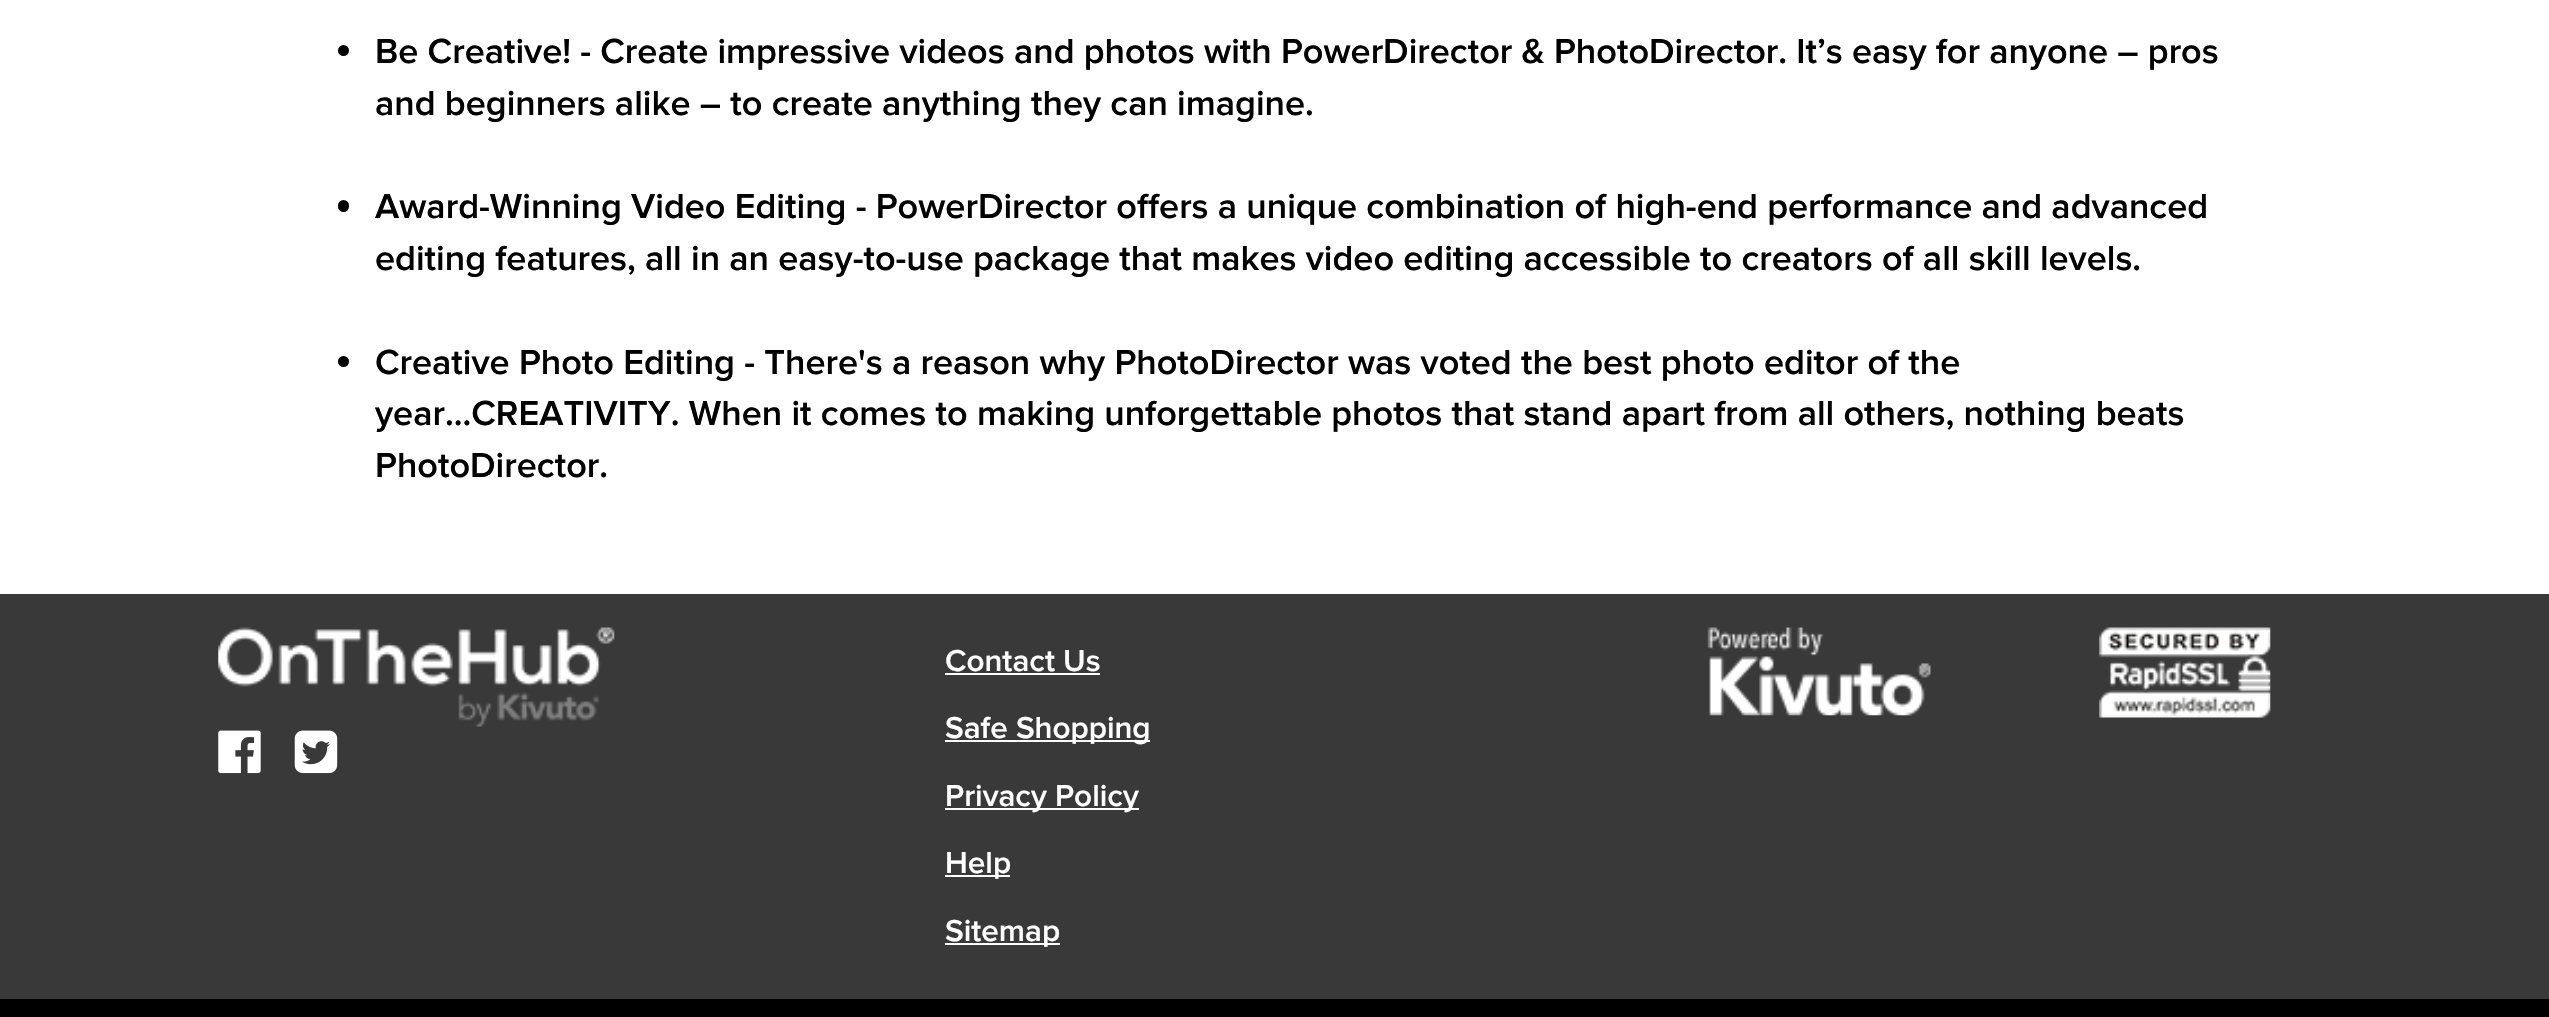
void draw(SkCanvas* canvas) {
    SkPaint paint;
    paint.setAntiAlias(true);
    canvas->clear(0xFFFFFFFF);
    paint.setColor(0xFF000000);
    canvas->drawCircle(343.5f, 50.5f, 5.5f, paint);
    SkFont font1(fontMgr->matchFamilyStyle("Proxima Nova", SkFontStyle(600, SkFontStyle::kNormal_Width, SkFontStyle::kUpright_Slant)), 36);
    font1.setSubpixel(true);
    canvas->drawString("Be Creative! - Create impressive videos and photos with PowerDirector & PhotoDirector. It’s easy for anyone – pros", 375, 63, font1, paint);
    canvas->drawString("and beginners alike – to create anything they can imagine.", 375, 115, font1, paint);
    canvas->drawRoundRect(SkRect::MakeXYWH(338, 200, 11, 12), 5.5f, 5.5f, paint);
    canvas->drawString("Award-Winning Video Editing - PowerDirector offers a unique combination of high-end performance and advanced", 375, 218, font1, paint);
    canvas->drawString("editing features, all in an easy-to-use package that makes video editing accessible to creators of all skill levels.", 375, 270, font1, paint);
    canvas->drawCircle(343.5f, 361.5f, 5.5f, paint);
    canvas->drawString("Creative Photo Editing - There's a reason why PhotoDirector was voted the best photo editor of the", 375, 374, font1, paint);
    canvas->drawString("year...CREATIVITY. When it comes to making unforgettable photos that stand apart from all others, nothing beats", 375, 425, font1, paint);
    canvas->drawString("PhotoDirector.", 375, 477, font1, paint);
    paint.setColor(0xFF393939);
    canvas->drawRect(SkRect::MakeXYWH(0, 594, 2549, 405), paint);
    canvas->drawImageRect(SkImages::DeferredFromEncodedData(SkData::MakeFromFileName("img1.png")), SkRect::MakeXYWH(218, 627, 397, 100), SkSamplingOptions());
    canvas->drawImageRect(SkImages::DeferredFromEncodedData(SkData::MakeFromFileName("img2.png")), SkRect::MakeXYWH(218, 730, 43, 44), SkSamplingOptions());
    canvas->drawImageRect(SkImages::DeferredFromEncodedData(SkData::MakeFromFileName("img3.png")), SkRect::MakeXYWH(294, 730, 44, 44), SkSamplingOptions());
    SkFont font2(fontMgr->matchFamilyStyle("Proxima Nova", SkFontStyle(600, SkFontStyle::kNormal_Width, SkFontStyle::kUpright_Slant)), 31.5f);
    font2.setSubpixel(true);
    paint.setColor(0xFFFFFFFF);
    canvas->drawString("Contact Us", 945, 671, font2, paint);
    canvas->drawRect(SkRect::MakeXYWH(945, 673, 155, 2), paint);
    canvas->drawRect(SkRect::MakeXYWH(945, 740, 205, 2), paint);
    canvas->drawString("Safe Shopping", 945, 738, font2, paint);
    canvas->drawRect(SkRect::MakeXYWH(945, 808, 194, 2), paint);
    canvas->drawString("Privacy Policy", 945, 806, font2, paint);
    canvas->drawRect(SkRect::MakeXYWH(945, 875, 65, 2), paint);
    canvas->drawString("Help", 945, 873, font2, paint);
    canvas->drawRect(SkRect::MakeXYWH(945, 943, 115, 2), paint);
    canvas->drawString("Sitemap", 945, 941, font2, paint);
    canvas->drawImageRect(SkImages::DeferredFromEncodedData(SkData::MakeFromFileName("img4.png")), SkRect::MakeXYWH(1707, 627, 224, 89), SkSamplingOptions());
    canvas->drawImageRect(SkImages::DeferredFromEncodedData(SkData::MakeFromFileName("img5.png")), SkRect::MakeXYWH(2099, 627, 172, 91), SkSamplingOptions());
    paint.setColor(0xFF000000);
    canvas->drawRect(SkRect::MakeXYWH(0, 999, 2549, 18), paint);
}
